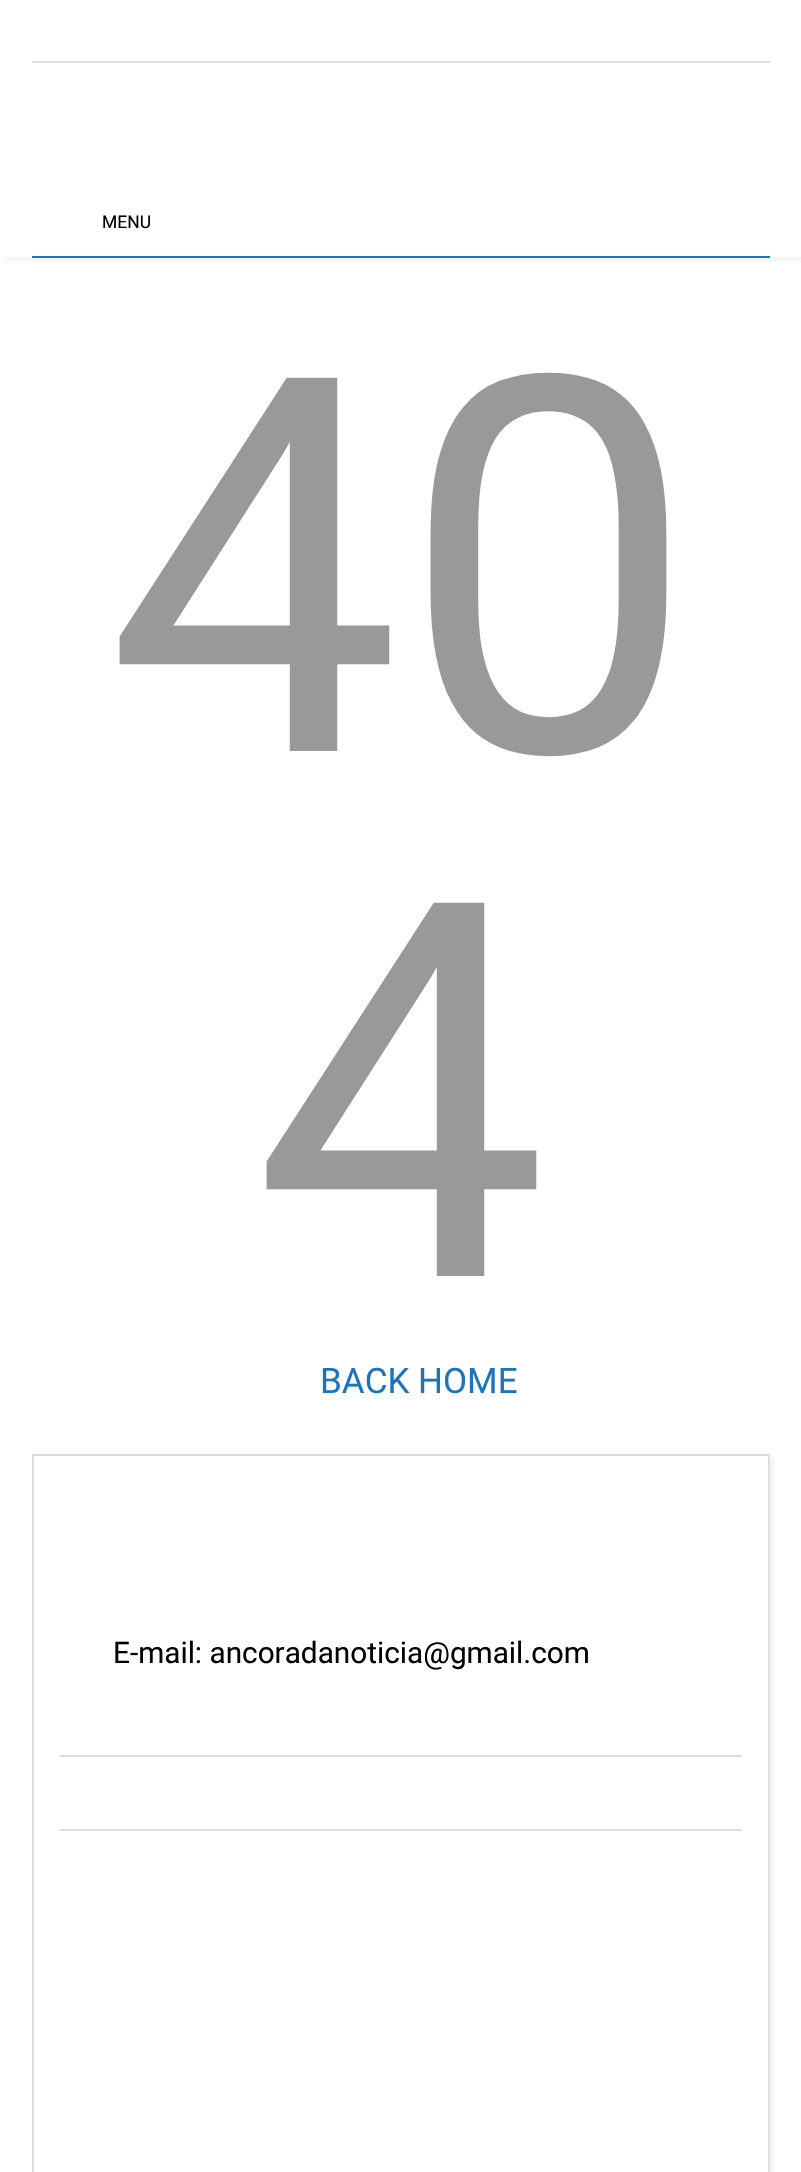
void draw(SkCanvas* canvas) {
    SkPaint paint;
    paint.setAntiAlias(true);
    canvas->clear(0xFFFFFFFF);
    canvas->save();
    canvas->clipRect(SkRect::MakeXYWH(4, 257, 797, 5));
    paint.setColor(0x0D000000);
    paint.setMaskFilter(SkMaskFilter::MakeBlur(kNormal_SkBlurStyle, 2.5f));
    canvas->drawRect(SkRect::MakeXYWH(4, 4, 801, 257), paint);
    paint.setMaskFilter(nullptr);
    canvas->restore();
    paint.setColor(0xFFDDDDDD);
    canvas->drawRect(SkRect::MakeXYWH(32, 61, 738, 2), paint);
    SkFont font1(fontMgr->matchFamilyStyle("Roboto", SkFontStyle::Normal()), 17.5f);
    font1.setSubpixel(true);
    paint.setColor(0xFF000000);
    canvas->drawString("MENU", 102, 228, font1, paint);
    paint.setColor(0xFF1E73BE);
    canvas->drawRect(SkRect::MakeXYWH(32, 256, 738, 2), paint);
    SkFont font2(fontMgr->matchFamilyStyle("Roboto", SkFontStyle::Normal()), 525);
    font2.setSubpixel(true);
    paint.setColor(0xFF999999);
    canvas->drawString("40", 106, 751, font2, paint);
    canvas->drawString("4", 253, 1276, font2, paint);
    SkFont font3(fontMgr->matchFamilyStyle("Roboto", SkFontStyle::Normal()), 35);
    font3.setSubpixel(true);
    paint.setColor(0xFF1E73BE);
    canvas->drawString("BACK HOME", 320, 1393, font3, paint);
    canvas->save();
    canvas->clipRect(SkRect::MakeXYWH(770, 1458, 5, 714));
    paint.setColor(0x0D000000);
    paint.setMaskFilter(SkMaskFilter::MakeBlur(kNormal_SkBlurStyle, 2.5f));
    canvas->drawRect(SkRect::MakeXYWH(35, 1458, 739, 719), paint);
    paint.setMaskFilter(nullptr);
    canvas->restore();
    paint.setStyle(SkPaint::kStroke_Style);
    paint.setStrokeWidth(2);
    paint.setColor(0xFFDDDDDD);
    canvas->drawRect(SkRect::MakeXYWH(33, 1455, 736, 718), paint);
    SkFont font4(fontMgr->matchFamilyStyle("Roboto", SkFontStyle::Normal()), 29.75f);
    font4.setSubpixel(true);
    paint.setStyle(SkPaint::kFill_Style);
    paint.setColor(0xFF000000);
    canvas->drawString("E-mail: ancoradanoticia@gmail.com", 113, 1663, font4, paint);
    paint.setColor(0xFFDDDDDD);
    canvas->drawRect(SkRect::MakeXYWH(60, 1755, 682, 2), paint);
    canvas->drawRect(SkRect::MakeXYWH(60, 1829, 682, 2), paint);
}
